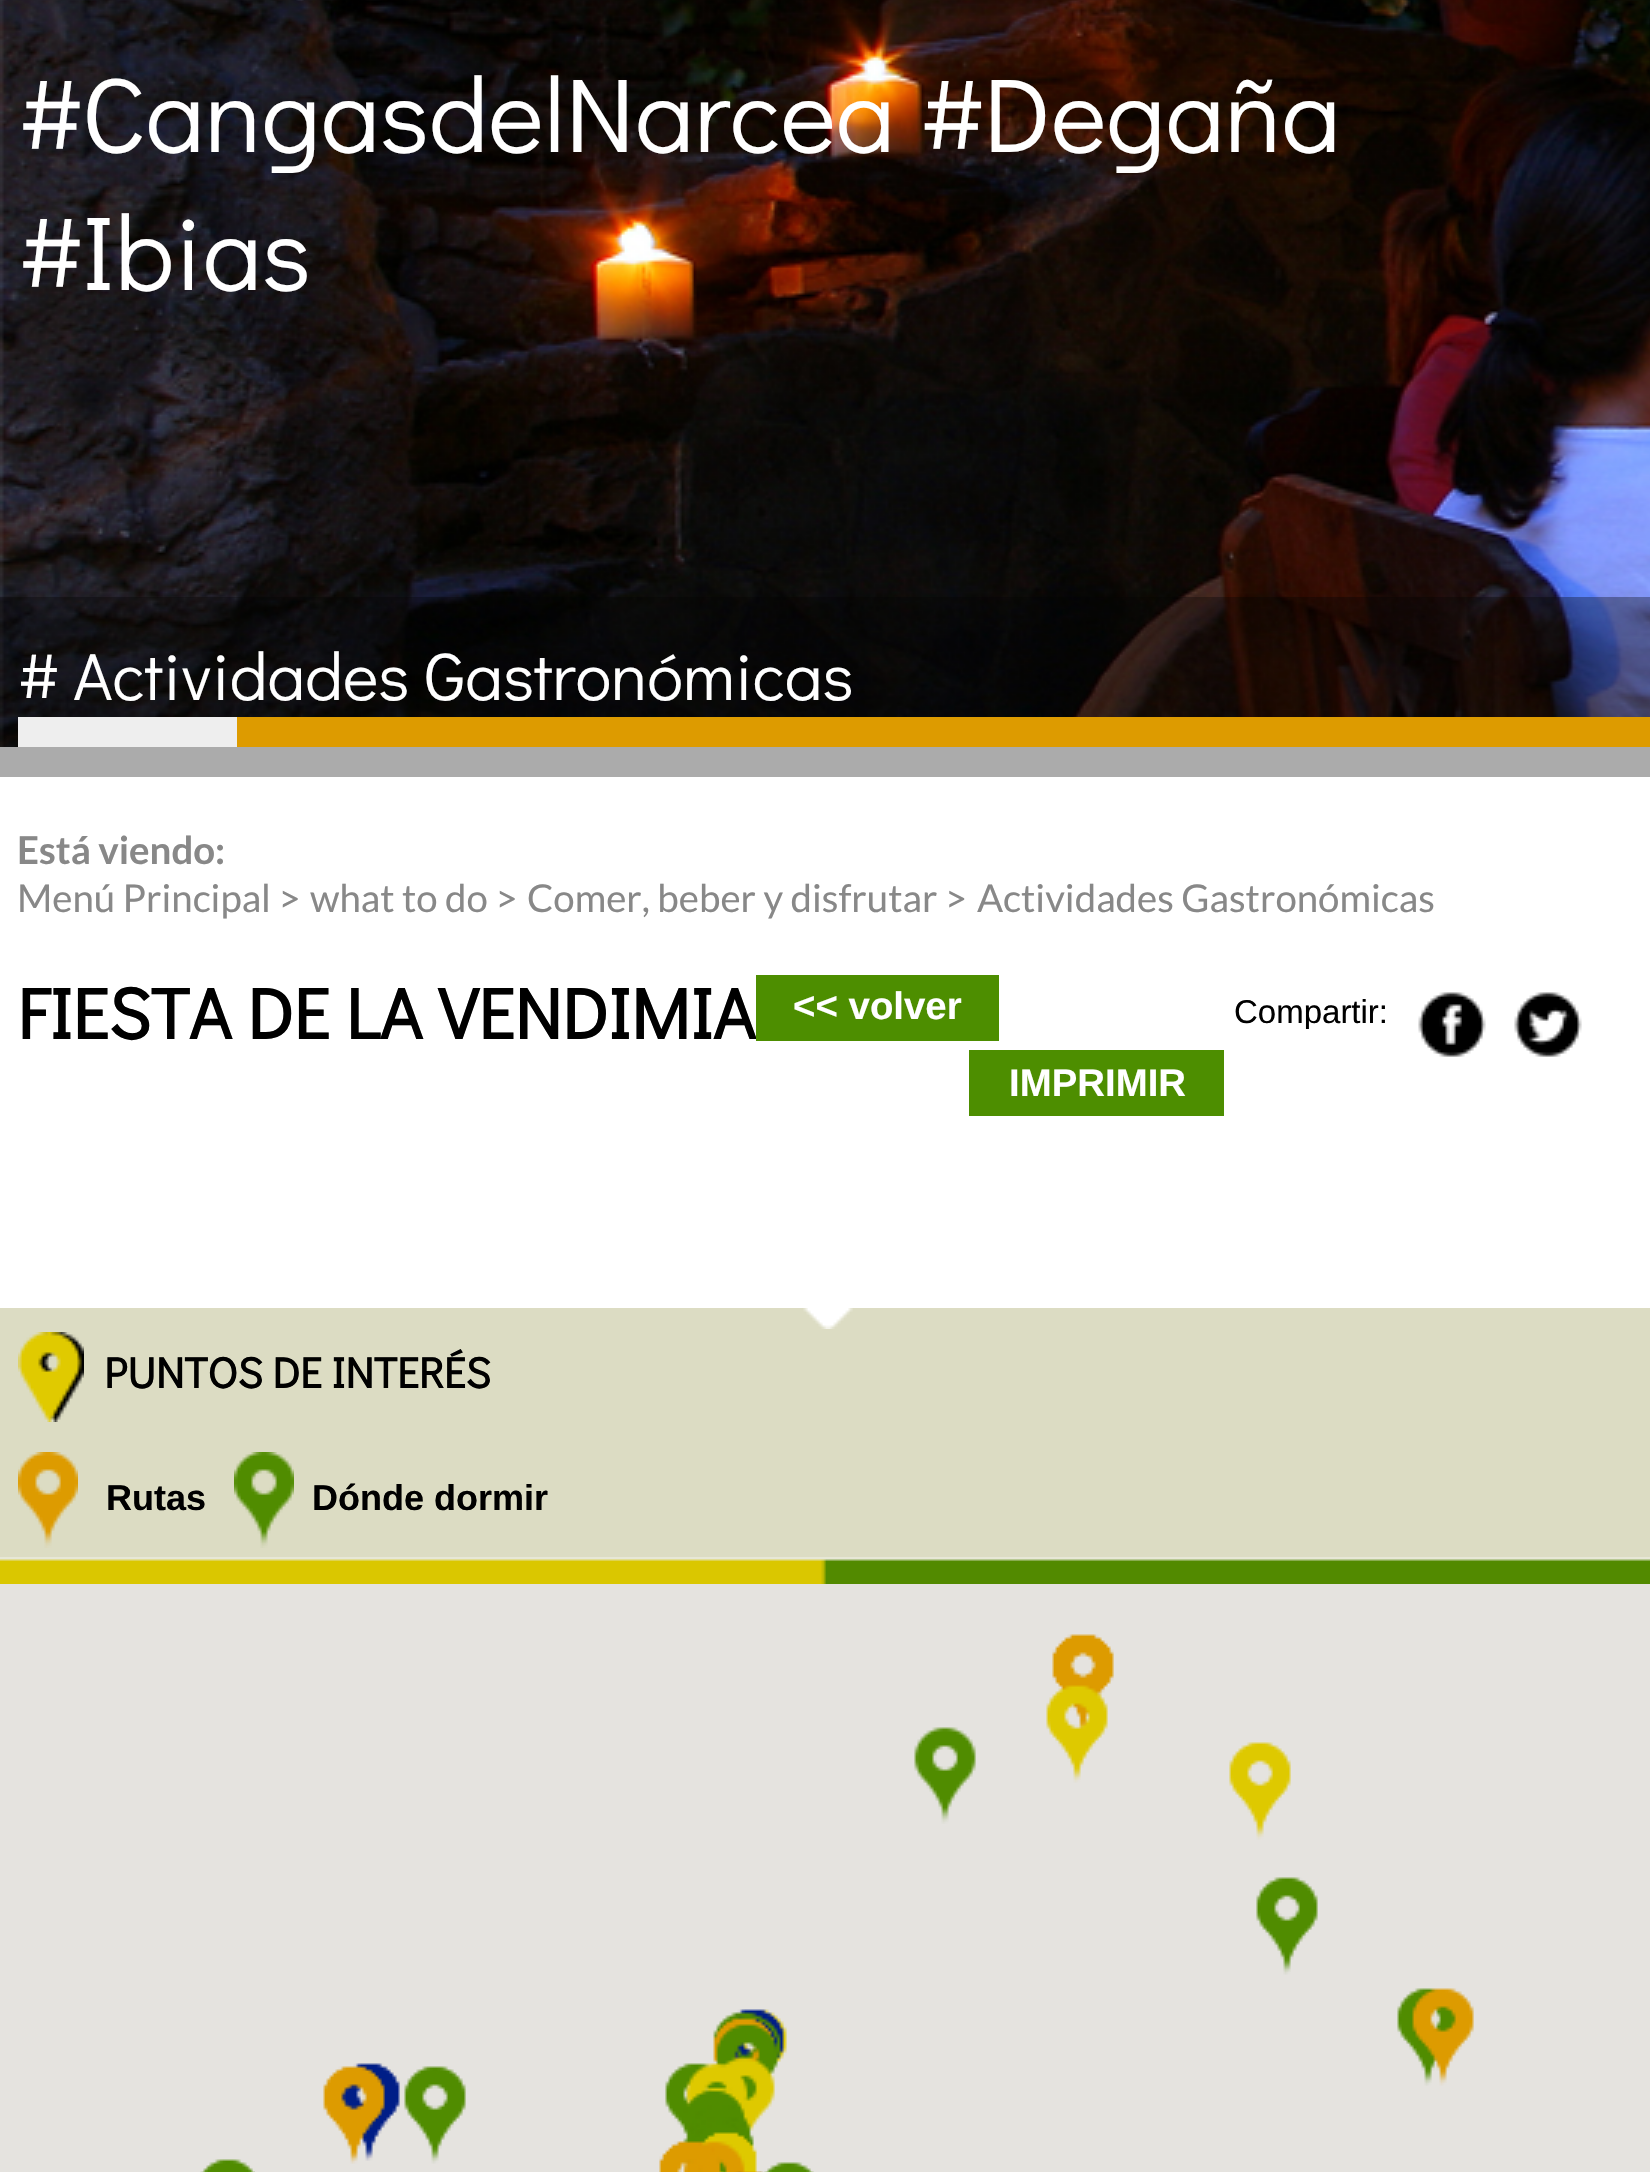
void draw(SkCanvas* canvas) {
    SkPaint paint;
    paint.setAntiAlias(true);
    canvas->clear(0xFFFFFFFF);
    canvas->drawImageRect(SkImages::DeferredFromEncodedData(SkData::MakeFromFileName("img1.png")), SkRect::MakeXYWH(0, 0, 1650, 747), SkSamplingOptions());
    SkFont font1(fontMgr->matchFamilyStyle("Didact Gothic", SkFontStyle::Normal()), 105.6f);
    font1.setSubpixel(true);
    paint.setColor(0xFFFFFFFF);
    canvas->drawString("#CangasdelNarcea #Degaña", 17, 152, font1, paint);
    canvas->drawString("#Ibias", 17, 290, font1, paint);
    paint.setColor(0x54000000);
    canvas->drawRect(SkRect::MakeXYWH(0, 597, 1650, 180), paint);
    SkFont font2(fontMgr->matchFamilyStyle("Didact Gothic", SkFontStyle::Normal()), 67.25f);
    font2.setSubpixel(true);
    paint.setColor(0xFFFFFFFF);
    canvas->drawString("# Actividades Gastronómicas", 17, 700, font2, paint);
    paint.setColor(0xFFDD9B00);
    canvas->drawRect(SkRect::MakeXYWH(237, 717, 1413, 30), paint);
    paint.setColor(0xFFEEEEEE);
    canvas->drawRect(SkRect::MakeXYWH(18, 717, 219, 30), paint);
    SkFont font3(fontMgr->matchFamilyStyle("Lato", SkFontStyle::Bold()), 38.4f);
    font3.setSubpixel(true);
    paint.setColor(0xFF888888);
    canvas->drawString("Está viendo:", 17, 864, font3, paint);
    SkFont font4(fontMgr->matchFamilyStyle("Lato", SkFontStyle::Normal()), 38.4f);
    font4.setSubpixel(true);
    canvas->drawString("Menú Principal >", 17, 912, font4, paint);
    canvas->drawString("what to do >", 310, 912, font4, paint);
    canvas->drawString("Comer, beber y disfrutar >", 527, 912, font4, paint);
    canvas->drawString("Actividades Gastronómicas", 977, 912, font4, paint);
    SkFont font5(fontMgr->matchFamilyStyle("Didact Gothic", SkFontStyle::Bold()), 72);
    font5.setSubpixel(true);
    paint.setColor(0xFF000000);
    canvas->drawString("FIESTA DE LA VENDIMIA", 17, 1039, font5, paint);
    paint.setColor(0xFF4D8E00);
    canvas->drawRect(SkRect::MakeXYWH(756, 975, 243, 66), paint);
    SkFont font6(fontMgr->matchFamilyStyle("Liberation Sans", SkFontStyle::Bold()), 38.4f);
    font6.setSubpixel(true);
    paint.setColor(0xFFFFFFFF);
    canvas->drawString("<< volver", 793, 1019, font6, paint);
    canvas->save();
    canvas->clipRect(SkRect::MakeXYWH(1233, 993, 189, 36));
    SkFont font7(fontMgr->matchFamilyStyle("Liberation Sans", SkFontStyle::Normal()), 33);
    font7.setSubpixel(true);
    paint.setColor(0xFF000000);
    canvas->drawString("Compartir:", 1234, 1023, font7, paint);
    canvas->restore();
    canvas->drawImageRect(SkImages::DeferredFromEncodedData(SkData::MakeFromFileName("img2.png")), SkRect::MakeXYWH(1418, 992, 68, 65), SkSamplingOptions());
    canvas->drawImageRect(SkImages::DeferredFromEncodedData(SkData::MakeFromFileName("img3.png")), SkRect::MakeXYWH(1514, 992, 68, 65), SkSamplingOptions());
    paint.setColor(0xFF4D8E00);
    canvas->drawRect(SkRect::MakeXYWH(969, 1050, 255, 66), paint);
    paint.setColor(0xFFFFFFFF);
    canvas->drawString("IMPRIMIR", 1009, 1096, font6, paint);
    paint.setColor(0xFFDCDCC3);
    canvas->drawRect(SkRect::MakeXYWH(0, 1308, 1650, 249), paint);
    canvas->drawImageRect(SkImages::DeferredFromEncodedData(SkData::MakeFromFileName("img4.png")), SkRect::MakeXYWH(803, 1308, 50, 21), SkSamplingOptions());
    canvas->drawImageRect(SkImages::DeferredFromEncodedData(SkData::MakeFromFileName("img5.png")), SkRect::MakeXYWH(0, 1557, 1650, 27), SkSamplingOptions());
    canvas->drawImageRect(SkImages::DeferredFromEncodedData(SkData::MakeFromFileName("img6.png")), SkRect::MakeXYWH(18, 1332, 66, 90), SkSamplingOptions());
    SkFont font8(fontMgr->matchFamilyStyle("Didact Gothic", SkFontStyle::Bold()), 43.25f);
    font8.setSubpixel(true);
    paint.setColor(0xFF000000);
    canvas->drawString("PUNTOS DE INTERÉS", 104, 1388, font8, paint);
    canvas->drawImageRect(SkImages::DeferredFromEncodedData(SkData::MakeFromFileName("img7.png")), SkRect::MakeXYWH(18, 1452, 60, 96), SkSamplingOptions());
    SkFont font9(fontMgr->matchFamilyStyle("Liberation Sans", SkFontStyle::Bold()), 36);
    font9.setSubpixel(true);
    canvas->drawString("Rutas", 106, 1510, font9, paint);
    canvas->drawImageRect(SkImages::DeferredFromEncodedData(SkData::MakeFromFileName("img8.png")), SkRect::MakeXYWH(234, 1452, 60, 96), SkSamplingOptions());
    canvas->drawString("Dónde dormir", 312, 1510, font9, paint);
    paint.setColor(0xFFE5E3DF);
    canvas->drawRect(SkRect::MakeXYWH(0, 1584, 1650, 588), paint);
    canvas->drawImageRect(SkImages::DeferredFromEncodedData(SkData::MakeFromFileName("img9.png")), SkRect::MakeXYWH(914, 1727, 62, 97), SkSamplingOptions());
    canvas->drawImageRect(SkImages::DeferredFromEncodedData(SkData::MakeFromFileName("img10.png")), SkRect::MakeXYWH(1046, 1634, 272, 341), SkSamplingOptions());
    canvas->drawImageRect(SkImages::DeferredFromEncodedData(SkData::MakeFromFileName("img11.png")), SkRect::MakeXYWH(200, 2159, 55, 13), SkSamplingOptions());
    canvas->drawImageRect(SkImages::DeferredFromEncodedData(SkData::MakeFromFileName("img12.png")), SkRect::MakeXYWH(323, 2009, 491, 163), SkSamplingOptions());
    canvas->drawImageRect(SkImages::DeferredFromEncodedData(SkData::MakeFromFileName("img13.png")), SkRect::MakeXYWH(1397, 1988, 77, 98), SkSamplingOptions());
}
